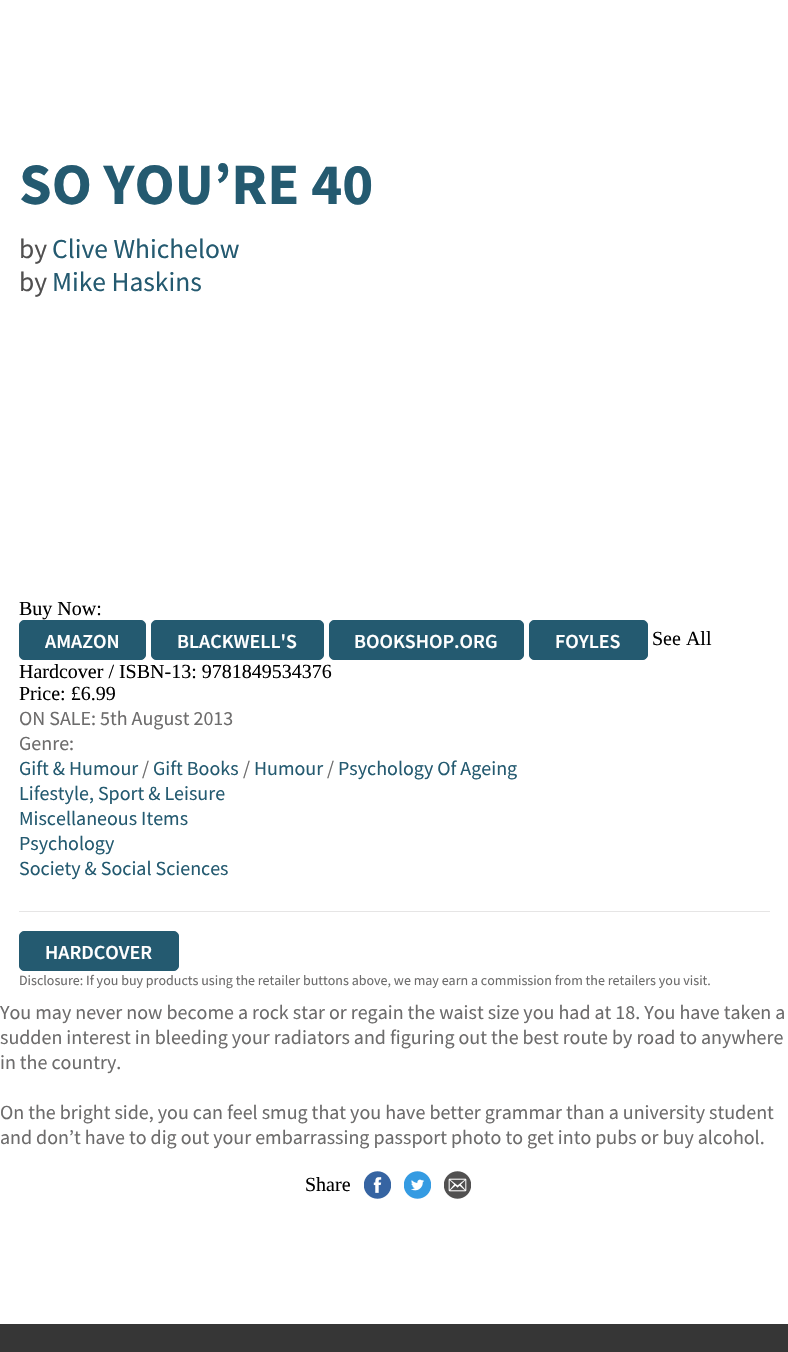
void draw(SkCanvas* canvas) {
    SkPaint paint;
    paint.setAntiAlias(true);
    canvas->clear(0xFFFFFFFF);
    SkFont font1(fontMgr->matchFamilyStyle("Source Sans Pro", SkFontStyle::Bold()), 58.75f);
    font1.setSubpixel(true);
    paint.setColor(0xFF245A70);
    canvas->drawString("SO YOU’RE 40", 19, 204, font1, paint);
    SkFont font2(fontMgr->matchFamilyStyle("Source Sans Pro", SkFontStyle::Normal()), 27.5f);
    font2.setSubpixel(true);
    paint.setColor(0xFF515050);
    canvas->drawString("by", 19, 258, font2, paint);
    paint.setColor(0xFF245A70);
    canvas->drawString("Clive Whichelow", 52, 258, font2, paint);
    paint.setColor(0xFF515050);
    canvas->drawString("by", 19, 291, font2, paint);
    paint.setColor(0xFF245A70);
    canvas->drawString("Mike Haskins", 52, 291, font2, paint);
    SkFont font3(fontMgr->matchFamilyStyle("Liberation Serif", SkFontStyle::Normal()), 20);
    font3.setSubpixel(true);
    paint.setColor(0xFF000000);
    canvas->drawString("Buy Now:", 19, 615, font3, paint);
    paint.setColor(0xFF245A70);
    canvas->drawRoundRect(SkRect::MakeXYWH(19.5f, 620.5f, 126, 39), 4.5f, 4.5f, paint);
    paint.setStyle(SkPaint::kStroke_Style);
    paint.setStrokeWidth(1);
    canvas->drawRoundRect(SkRect::MakeXYWH(19.5f, 620.5f, 126, 39), 4.5f, 4.5f, paint);
    SkFont font4(fontMgr->matchFamilyStyle("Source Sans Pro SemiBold", SkFontStyle(600, SkFontStyle::kNormal_Width, SkFontStyle::kUpright_Slant)), 20);
    font4.setSubpixel(true);
    paint.setStyle(SkPaint::kFill_Style);
    paint.setColor(0xFFFFFFFF);
    canvas->drawString("AMAZON", 45, 648, font4, paint);
    paint.setColor(0xFF245A70);
    canvas->drawRoundRect(SkRect::MakeXYWH(151.5f, 620.5f, 172, 39), 4.5f, 4.5f, paint);
    paint.setStyle(SkPaint::kStroke_Style);
    canvas->drawRoundRect(SkRect::MakeXYWH(151.5f, 620.5f, 172, 39), 4.5f, 4.5f, paint);
    paint.setStyle(SkPaint::kFill_Style);
    paint.setColor(0xFFFFFFFF);
    canvas->drawString("BLACKWELL'S", 177, 648, font4, paint);
    paint.setColor(0xFF245A70);
    canvas->drawRoundRect(SkRect::MakeXYWH(329.5f, 620.5f, 194, 39), 4.5f, 4.5f, paint);
    paint.setStyle(SkPaint::kStroke_Style);
    canvas->drawRoundRect(SkRect::MakeXYWH(329.5f, 620.5f, 194, 39), 4.5f, 4.5f, paint);
    paint.setStyle(SkPaint::kFill_Style);
    paint.setColor(0xFFFFFFFF);
    canvas->drawString("BOOKSHOP.ORG", 354, 648, font4, paint);
    paint.setColor(0xFF245A70);
    canvas->drawRoundRect(SkRect::MakeXYWH(529.5f, 620.5f, 118, 39), 4.5f, 4.5f, paint);
    paint.setStyle(SkPaint::kStroke_Style);
    canvas->drawRoundRect(SkRect::MakeXYWH(529.5f, 620.5f, 118, 39), 4.5f, 4.5f, paint);
    paint.setStyle(SkPaint::kFill_Style);
    paint.setColor(0xFFFFFFFF);
    canvas->drawString("FOYLES", 555, 648, font4, paint);
    paint.setColor(0xFF000000);
    canvas->drawString("See All", 652, 645, font3, paint);
    paint.setColor(0xFFE6E5E5);
    canvas->drawRect(SkRect::MakeXYWH(19, 911, 751, 1), paint);
    paint.setColor(0xFF000000);
    canvas->drawString("Hardcover / ISBN-13: 9781849534376", 19, 678, font3, paint);
    canvas->drawString("Price: £6.99", 19, 700, font3, paint);
    SkFont font5(fontMgr->matchFamilyStyle("Source Sans Pro", SkFontStyle::Normal()), 20);
    font5.setSubpixel(true);
    paint.setColor(0xFF6D6C6C);
    canvas->drawString("ON SALE: 5th August 2013", 19, 725, font5, paint);
    canvas->drawString("Genre:", 19, 750, font5, paint);
    paint.setColor(0xFF245A70);
    canvas->drawString("Gift & Humour", 19, 775, font5, paint);
    paint.setColor(0xFF6D6C6C);
    canvas->drawString("/", 142, 775, font5, paint);
    paint.setColor(0xFF245A70);
    canvas->drawString("Gift Books", 153, 775, font5, paint);
    paint.setColor(0xFF6D6C6C);
    canvas->drawString("/", 243, 775, font5, paint);
    paint.setColor(0xFF245A70);
    canvas->drawString("Humour", 254, 775, font5, paint);
    paint.setColor(0xFF6D6C6C);
    canvas->drawString("/", 327, 775, font5, paint);
    paint.setColor(0xFF245A70);
    canvas->drawString("Psychology Of Ageing", 338, 775, font5, paint);
    canvas->drawString("Lifestyle, Sport & Leisure", 19, 800, font5, paint);
    canvas->drawString("Miscellaneous Items", 19, 825, font5, paint);
    canvas->drawString("Psychology", 19, 850, font5, paint);
    canvas->drawString("Society & Social Sciences", 19, 875, font5, paint);
    canvas->drawRoundRect(SkRect::MakeXYWH(19.5f, 931.5f, 159, 39), 4.5f, 4.5f, paint);
    paint.setStyle(SkPaint::kStroke_Style);
    canvas->drawRoundRect(SkRect::MakeXYWH(19.5f, 931.5f, 159, 39), 4.5f, 4.5f, paint);
    paint.setStyle(SkPaint::kFill_Style);
    paint.setColor(0xFFFFFFFF);
    canvas->drawString("HARDCOVER", 45, 959, font4, paint);
    SkFont font6(fontMgr->matchFamilyStyle("Source Sans Pro", SkFontStyle::Normal()), 14);
    font6.setSubpixel(true);
    paint.setColor(0xFF6D6C6C);
    canvas->drawString("Disclosure: If you buy products using the retailer buttons above, we may earn a commission from the retailers you visit.", 19, 985, font6, paint);
    canvas->drawString("You may never now become a rock star or regain the waist size you had at 18. You have taken a", 0, 1019, font5, paint);
    canvas->drawString("sudden interest in bleeding your radiators and figuring out the best route by road to anywhere", 0, 1044, font5, paint);
    canvas->drawString("in the country.", 0, 1069, font5, paint);
    canvas->drawString("On the bright side, you can feel smug that you have better grammar than a university student", 0, 1119, font5, paint);
    canvas->drawString("and don’t have to dig out your embarrassing passport photo to get into pubs or buy alcohol.", 0, 1144, font5, paint);
    paint.setColor(0xFF000000);
    canvas->drawString("Share", 305, 1191, font3, paint);
    canvas->drawImageRect(SkImages::DeferredFromEncodedData(SkData::MakeFromFileName("img1.png")), SkRect::MakeXYWH(364, 1171, 27, 28), SkSamplingOptions());
    canvas->drawImageRect(SkImages::DeferredFromEncodedData(SkData::MakeFromFileName("img2.png")), SkRect::MakeXYWH(404, 1171, 27, 28), SkSamplingOptions());
    canvas->drawImageRect(SkImages::DeferredFromEncodedData(SkData::MakeFromFileName("img3.png")), SkRect::MakeXYWH(444, 1171, 27, 28), SkSamplingOptions());
    paint.setColor(0xFF363636);
    canvas->drawRect(SkRect::MakeXYWH(0, 1324, 788, 28), paint);
}
